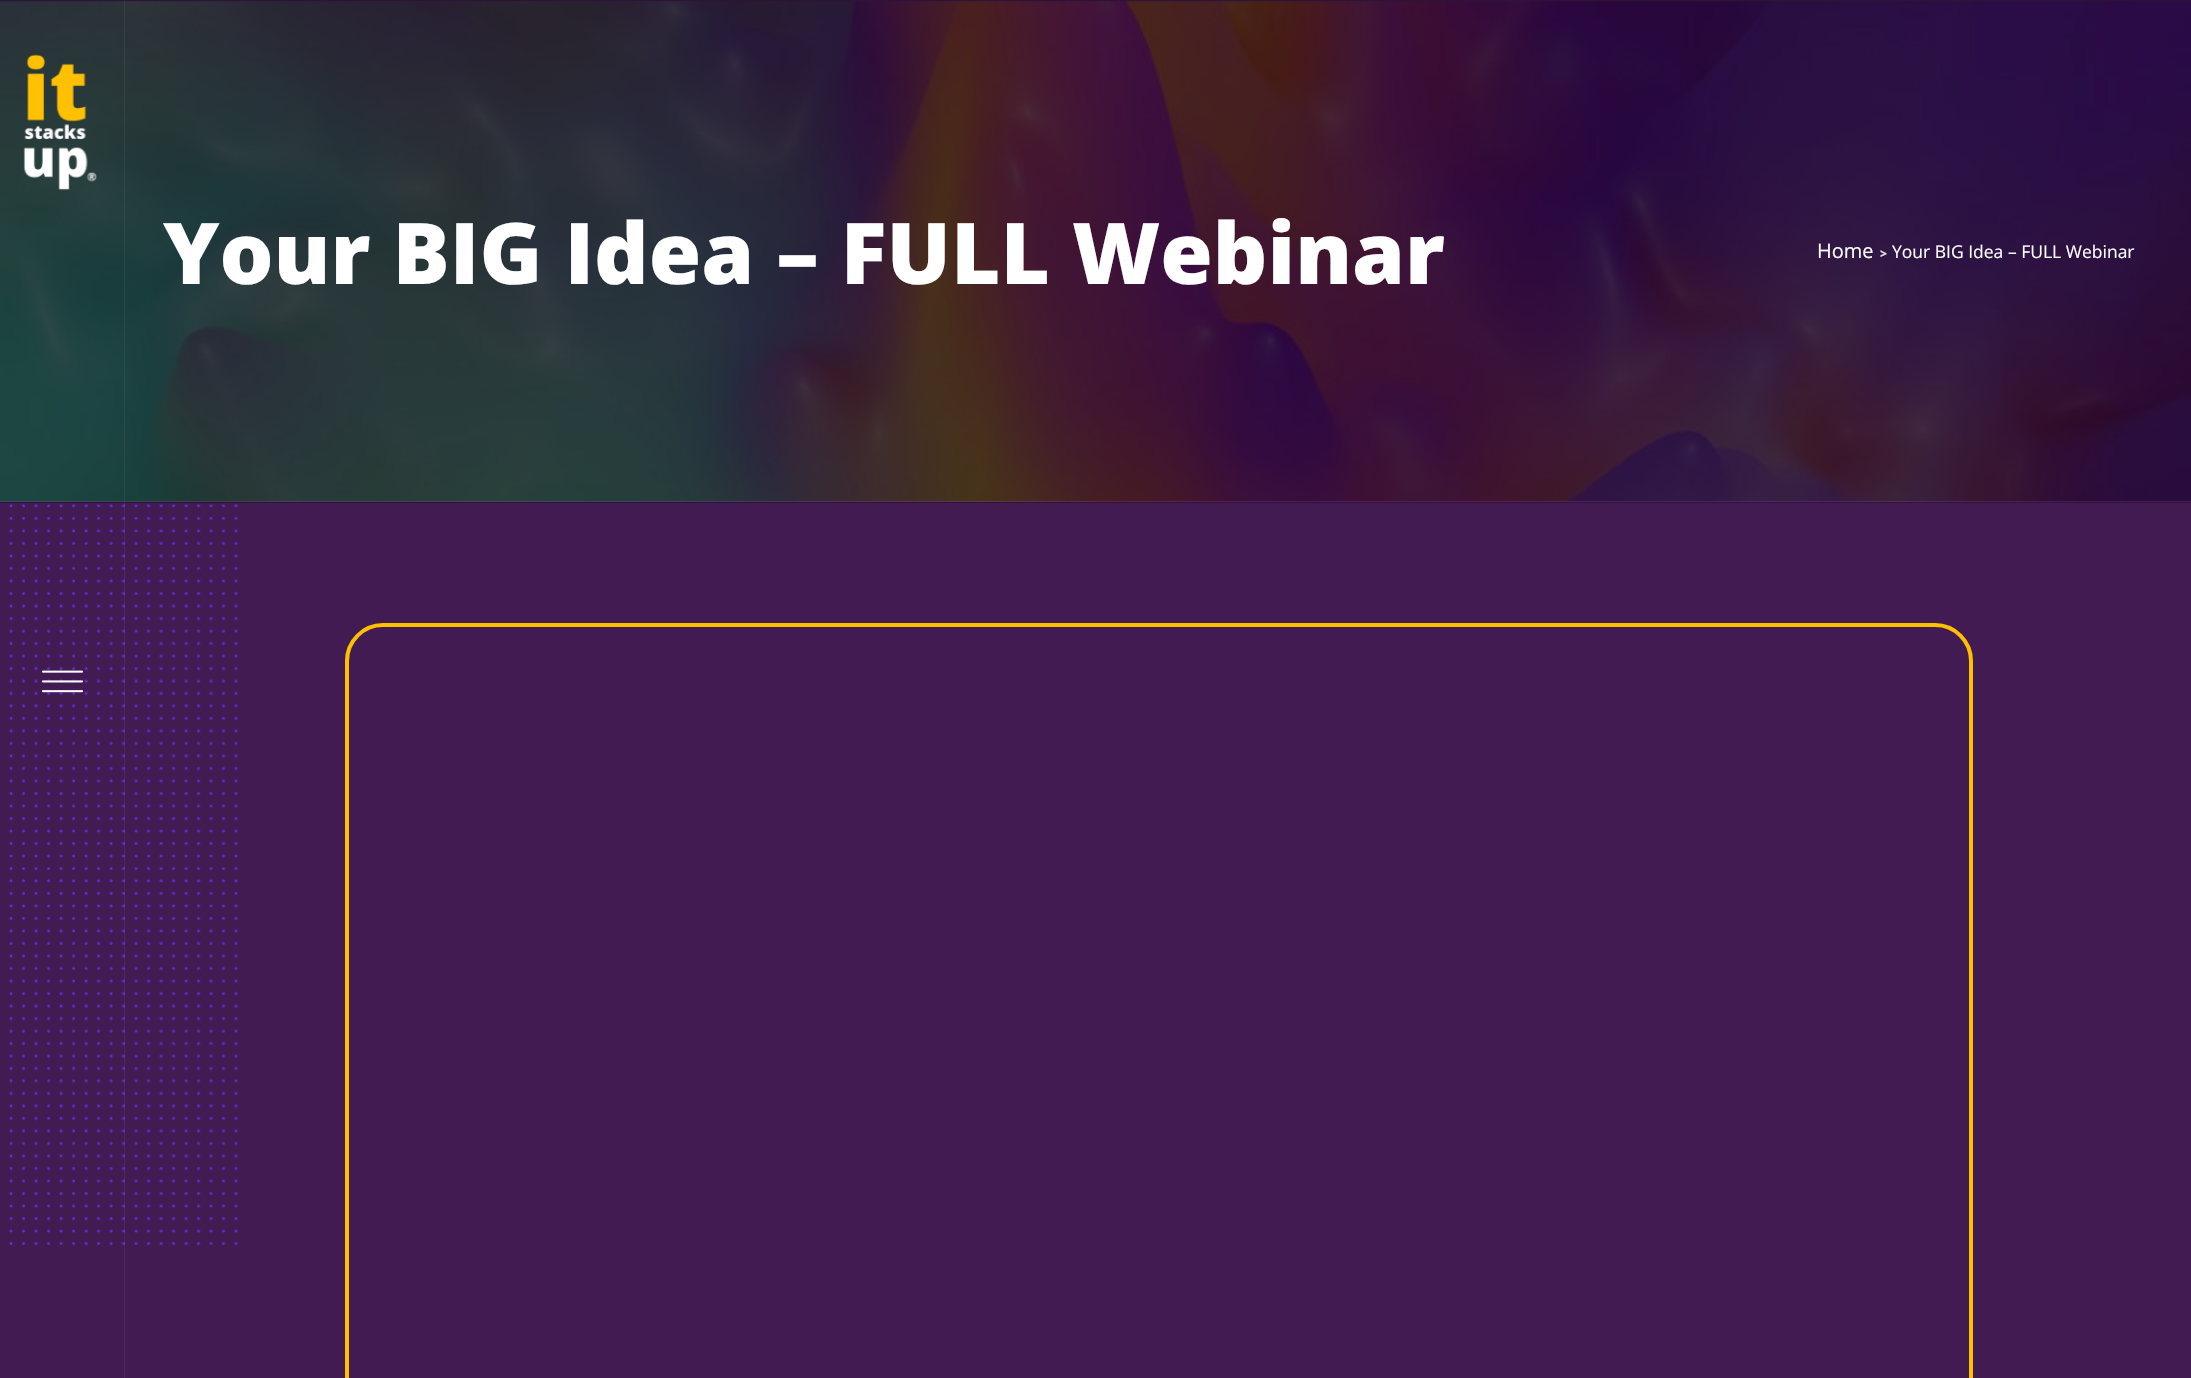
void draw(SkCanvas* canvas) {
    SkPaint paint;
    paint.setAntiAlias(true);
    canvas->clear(0xFF2E1339);
    canvas->drawImageRect(SkImages::DeferredFromEncodedData(SkData::MakeFromFileName("img3.png")), SkRect::MakeXYWH(0, 1, 2191, 501), SkSamplingOptions());
    canvas->drawImageRect(SkImages::DeferredFromEncodedData(SkData::MakeFromFileName("img1.png")), SkRect::MakeXYWH(23, 54, 74, 136), SkSamplingOptions());
    paint.setColor(0xFF421B52);
    canvas->drawRect(SkRect::MakeXYWH(0, 503, 2191, 875), paint);
    canvas->drawImageRect(SkImages::DeferredFromEncodedData(SkData::MakeFromFileName("img4.png")), SkRect::MakeXYWH(9, 504, 229, 741), SkSamplingOptions());
    paint.setColor(0x0FFFFFFF);
    canvas->drawRect(SkRect::MakeXYWH(124, 0, 1, 1378), paint);
    canvas->drawImageRect(SkImages::DeferredFromEncodedData(SkData::MakeFromFileName("img2.png")), SkRect::MakeXYWH(41, 670, 43, 23), SkSamplingOptions());
    SkFont font1(fontMgr->matchFamilyStyle("Open Sans", SkFontStyle(800, SkFontStyle::kNormal_Width, SkFontStyle::kUpright_Slant)), 85);
    font1.setSubpixel(true);
    paint.setColor(0xFFFFFFFF);
    canvas->drawString("Your BIG Idea – FULL Webinar", 163, 284, font1, paint);
    SkFont font2(fontMgr->matchFamilyStyle("Open Sans", SkFontStyle::Normal()), 20);
    font2.setSubpixel(true);
    canvas->drawString("Home", 1817, 258, font2, paint);
    SkFont font3(fontMgr->matchFamilyStyle("Open Sans", SkFontStyle(800, SkFontStyle::kNormal_Width, SkFontStyle::kUpright_Slant)), 12);
    font3.setSubpixel(true);
    paint.setColor(0xFFDEDEDE);
    canvas->drawString(">", 1880, 258, font3, paint);
    SkFont font4(fontMgr->matchFamilyStyle("Open Sans", SkFontStyle::Normal()), 17.5f);
    font4.setSubpixel(true);
    paint.setColor(0xFFFFFFFF);
    canvas->drawString("Your BIG Idea – FULL Webinar", 1892, 258, font4, paint);
    paint.setStyle(SkPaint::kStroke_Style);
    paint.setStrokeWidth(4);
    paint.setColor(0xFFFFC000);
    canvas->drawRoundRect(SkRect::MakeXYWH(347, 625, 1624, 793), 36, 36, paint);
}
